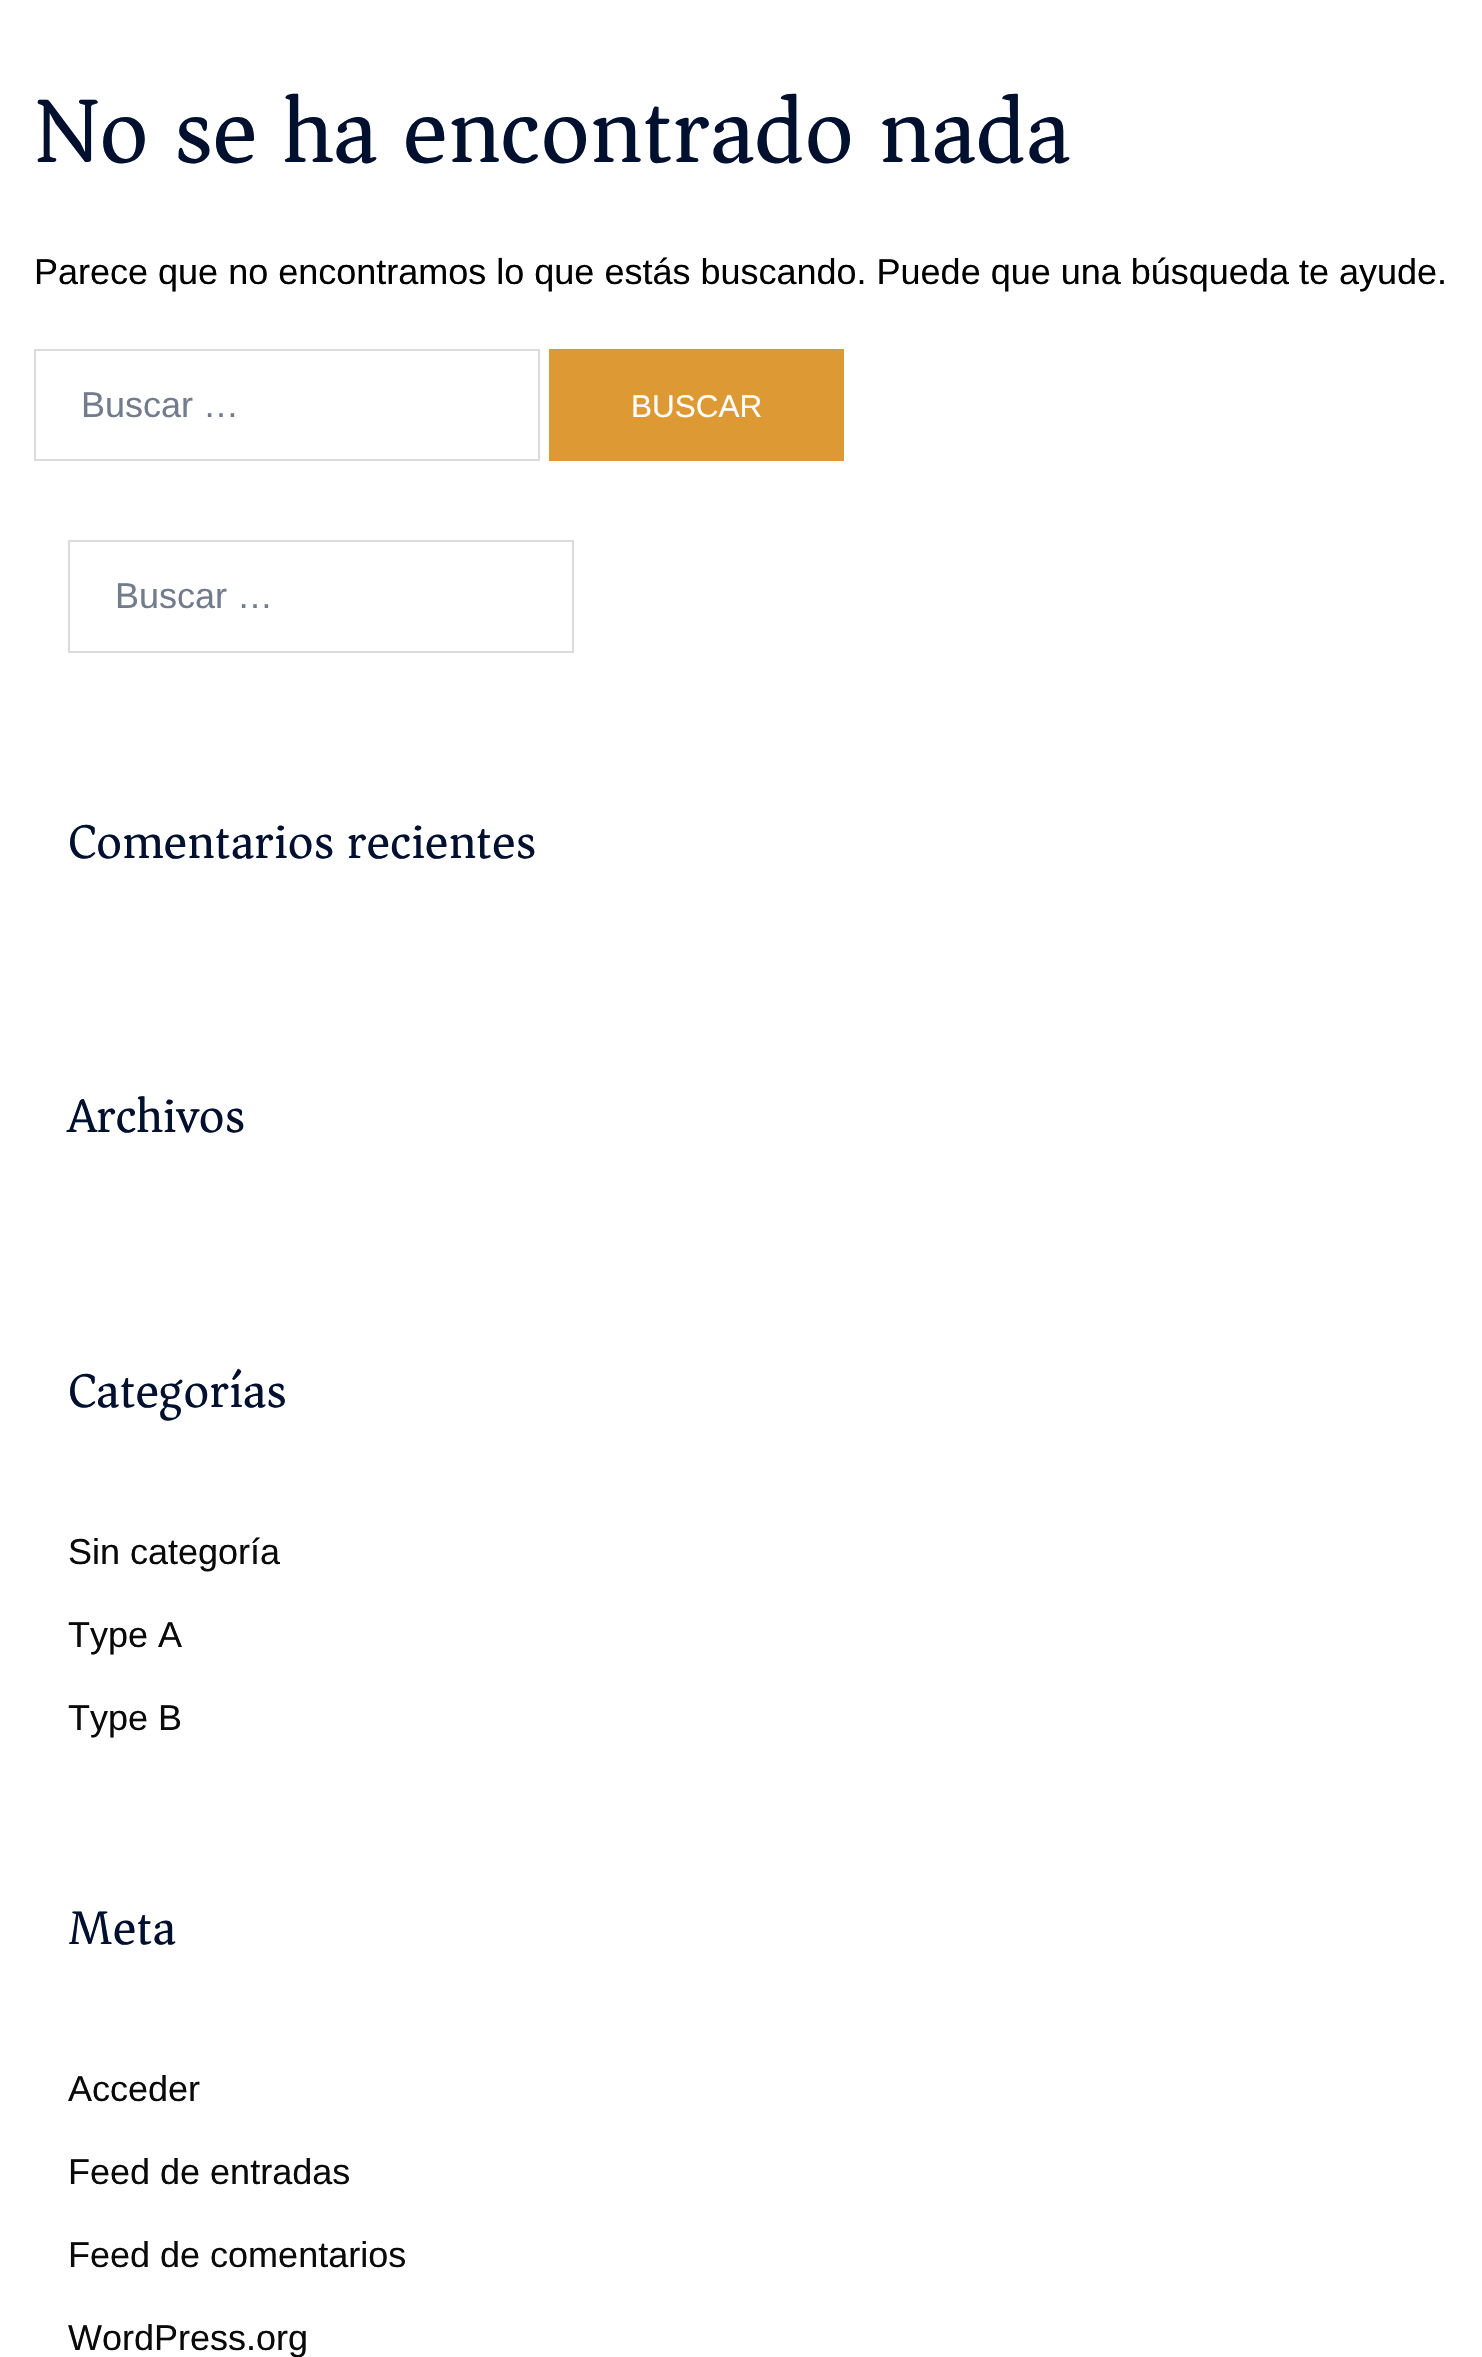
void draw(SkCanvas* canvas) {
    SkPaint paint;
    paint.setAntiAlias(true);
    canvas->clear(0xFFFFFFFF);
    SkFont font1(fontMgr->matchFamilyStyle("Asar", SkFontStyle::Normal()), 94.5f);
    font1.setSubpixel(true);
    paint.setColor(0xFF00102E);
    canvas->drawString("No se ha encontrado nada", 34, 162, font1, paint);
    SkFont font2(fontMgr->matchFamilyStyle("Arimo", SkFontStyle::Normal()), 36);
    font2.setSubpixel(true);
    paint.setColor(0xFF000000);
    canvas->drawString("Parece que no encontramos lo que estás buscando. Puede que una búsqueda te ayude.", 34, 284, font2, paint);
    paint.setStyle(SkPaint::kStroke_Style);
    paint.setStrokeWidth(2);
    paint.setColor(0xFFDBDBDB);
    canvas->drawRect(SkRect::MakeXYWH(35, 350, 504, 110), paint);
    paint.setStyle(SkPaint::kFill_Style);
    paint.setColor(0xFF737C8C);
    canvas->drawString("Buscar …", 81, 417, font2, paint);
    paint.setColor(0xFFDD9933);
    canvas->drawRect(SkRect::MakeXYWH(549, 349, 295, 112), paint);
    SkFont font3(fontMgr->matchFamilyStyle("Arimo", SkFontStyle::Normal()), 31.5f);
    font3.setSubpixel(true);
    paint.setColor(0xFFFFFFFF);
    canvas->drawString("BUSCAR", 631, 417, font3, paint);
    paint.setStyle(SkPaint::kStroke_Style);
    paint.setColor(0xFFDBDBDB);
    canvas->drawRect(SkRect::MakeXYWH(69, 541, 504, 111), paint);
    paint.setStyle(SkPaint::kFill_Style);
    paint.setColor(0xFF737C8C);
    canvas->drawString("Buscar …", 115, 608, font2, paint);
    SkFont font4(fontMgr->matchFamilyStyle("Asar", SkFontStyle::Normal()), 49.5f);
    font4.setSubpixel(true);
    paint.setColor(0xFF00102E);
    canvas->drawString("Comentarios recientes", 68, 858, font4, paint);
    canvas->drawString("Archivos", 68, 1132, font4, paint);
    canvas->drawString("Categorías", 68, 1407, font4, paint);
    paint.setColor(0xFF0A0A0A);
    canvas->drawString("Sin categoría", 68, 1564, font2, paint);
    canvas->drawString("Type A", 68, 1647, font2, paint);
    canvas->drawString("Type B", 68, 1730, font2, paint);
    paint.setColor(0xFF00102E);
    canvas->drawString("Meta", 68, 1944, font4, paint);
    paint.setColor(0xFF0A0A0A);
    canvas->drawString("Acceder", 68, 2101, font2, paint);
    canvas->drawString("Feed de entradas", 68, 2184, font2, paint);
    canvas->drawString("Feed de comentarios", 68, 2267, font2, paint);
    canvas->drawString("WordPress.org", 68, 2350, font2, paint);
}
